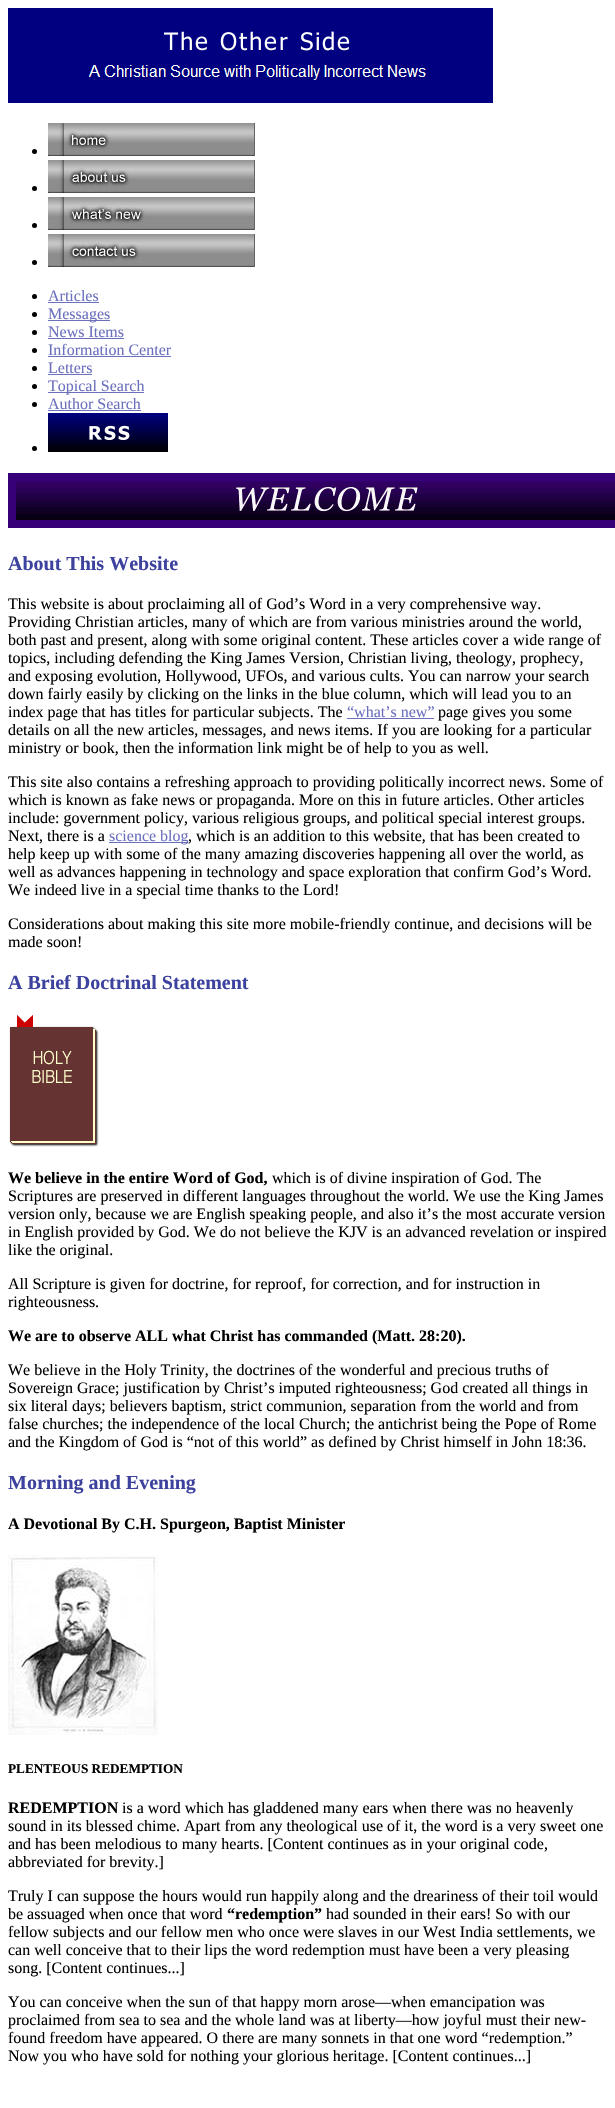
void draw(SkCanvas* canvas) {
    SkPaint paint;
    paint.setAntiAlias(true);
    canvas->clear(0xFFFFFFFF);
    canvas->drawImageRect(SkImages::DeferredFromEncodedData(SkData::MakeFromFileName("img1.png")), SkRect::MakeXYWH(8, 8, 485, 95), SkSamplingOptions());
    paint.setColor(0xFF000000);
    canvas->drawCircle(34.5f, 151.5f, 2.5f, paint);
    canvas->drawImageRect(SkImages::DeferredFromEncodedData(SkData::MakeFromFileName("img2.png")), SkRect::MakeXYWH(48, 123, 207, 33), SkSamplingOptions());
    canvas->drawCircle(34.5f, 188.5f, 2.5f, paint);
    canvas->drawImageRect(SkImages::DeferredFromEncodedData(SkData::MakeFromFileName("img3.png")), SkRect::MakeXYWH(48, 160, 207, 33), SkSamplingOptions());
    canvas->drawCircle(34.5f, 225.5f, 2.5f, paint);
    canvas->drawImageRect(SkImages::DeferredFromEncodedData(SkData::MakeFromFileName("img4.png")), SkRect::MakeXYWH(48, 197, 207, 33), SkSamplingOptions());
    canvas->drawCircle(34.5f, 262.5f, 2.5f, paint);
    canvas->drawImageRect(SkImages::DeferredFromEncodedData(SkData::MakeFromFileName("img5.png")), SkRect::MakeXYWH(48, 234, 207, 33), SkSamplingOptions());
    canvas->drawCircle(34.5f, 296.5f, 2.5f, paint);
    SkFont font1(fontMgr->matchFamilyStyle("Liberation Serif", SkFontStyle::Normal()), 16);
    font1.setSubpixel(true);
    paint.setColor(0xFF6B70BD);
    canvas->drawString("Articles", 48, 301, font1, paint);
    canvas->drawRect(SkRect::MakeXYWH(48, 302, 51, 1), paint);
    paint.setColor(0xFF000000);
    canvas->drawCircle(34.5f, 314.5f, 2.5f, paint);
    paint.setColor(0xFF6B70BD);
    canvas->drawRect(SkRect::MakeXYWH(48, 320, 62, 1), paint);
    canvas->drawString("Messages", 48, 319, font1, paint);
    paint.setColor(0xFF000000);
    canvas->drawCircle(34.5f, 332.5f, 2.5f, paint);
    paint.setColor(0xFF6B70BD);
    canvas->drawString("News Items", 48, 337, font1, paint);
    canvas->drawRect(SkRect::MakeXYWH(48, 338, 76, 1), paint);
    paint.setColor(0xFF000000);
    canvas->drawCircle(34.5f, 350.5f, 2.5f, paint);
    paint.setColor(0xFF6B70BD);
    canvas->drawString("Information Center", 48, 355, font1, paint);
    canvas->drawRect(SkRect::MakeXYWH(48, 356, 123, 1), paint);
    paint.setColor(0xFF000000);
    canvas->drawCircle(34.5f, 368.5f, 2.5f, paint);
    paint.setColor(0xFF6B70BD);
    canvas->drawString("Letters", 48, 373, font1, paint);
    canvas->drawRect(SkRect::MakeXYWH(48, 374, 44, 1), paint);
    paint.setColor(0xFF000000);
    canvas->drawCircle(34.5f, 386.5f, 2.5f, paint);
    paint.setColor(0xFF6B70BD);
    canvas->drawRect(SkRect::MakeXYWH(48, 392, 96, 1), paint);
    canvas->drawString("Topical Search", 48, 391, font1, paint);
    paint.setColor(0xFF000000);
    canvas->drawCircle(34.5f, 404.5f, 2.5f, paint);
    paint.setColor(0xFF6B70BD);
    canvas->drawString("Author Search", 48, 409, font1, paint);
    canvas->drawRect(SkRect::MakeXYWH(48, 410, 93, 1), paint);
    paint.setColor(0xFF000000);
    canvas->drawCircle(34.5f, 448.5f, 2.5f, paint);
    canvas->drawImageRect(SkImages::DeferredFromEncodedData(SkData::MakeFromFileName("img6.png")), SkRect::MakeXYWH(48, 413, 120, 39), SkSamplingOptions());
    canvas->drawImageRect(SkImages::DeferredFromEncodedData(SkData::MakeFromFileName("img7.png")), SkRect::MakeXYWH(8, 473, 607, 55), SkSamplingOptions());
    SkFont font2(fontMgr->matchFamilyStyle("Liberation Serif", SkFontStyle::Bold()), 20);
    font2.setSubpixel(true);
    paint.setColor(0xFF3D429E);
    canvas->drawString("About This Website", 8, 570, font2, paint);
    paint.setColor(0xFF000000);
    canvas->drawString("This website is about proclaiming all of God’s Word in a very comprehensive way.", 8, 609, font1, paint);
    canvas->drawString("Providing Christian articles, many of which are from various ministries around the world,", 8, 627, font1, paint);
    canvas->drawString("both past and present, along with some original content. These articles cover a wide range of", 8, 645, font1, paint);
    canvas->drawString("topics, including defending the King James Version, Christian living, theology, prophecy,", 8, 663, font1, paint);
    canvas->drawString("and exposing evolution, Hollywood, UFOs, and various cults. You can narrow your search", 8, 681, font1, paint);
    canvas->drawString("down fairly easily by clicking on the links in the blue column, which will lead you to an", 8, 699, font1, paint);
    canvas->drawString("index page that has titles for particular subjects. The", 8, 717, font1, paint);
    paint.setColor(0xFF6B70BD);
    canvas->drawString("“what’s new”", 347, 717, font1, paint);
    canvas->drawRect(SkRect::MakeXYWH(347, 718, 87, 1), paint);
    paint.setColor(0xFF000000);
    canvas->drawString("page gives you some", 438, 717, font1, paint);
    canvas->drawString("details on all the new articles, messages, and news items. If you are looking for a particular", 8, 735, font1, paint);
    canvas->drawString("ministry or book, then the information link might be of help to you as well.", 8, 753, font1, paint);
    canvas->drawString("This site also contains a refreshing approach to providing politically incorrect news. Some of", 8, 787, font1, paint);
    canvas->drawString("which is known as fake news or propaganda. More on this in future articles. Other articles", 8, 805, font1, paint);
    canvas->drawString("include: government policy, various religious groups, and political special interest groups.", 8, 823, font1, paint);
    canvas->drawString("Next, there is a", 8, 841, font1, paint);
    paint.setColor(0xFF6B70BD);
    canvas->drawRect(SkRect::MakeXYWH(109, 842, 79, 1), paint);
    canvas->drawString("science blog", 109, 841, font1, paint);
    paint.setColor(0xFF000000);
    canvas->drawString(", which is an addition to this website, that has been created to", 188, 841, font1, paint);
    canvas->drawString("help keep up with some of the many amazing discoveries happening all over the world, as", 8, 859, font1, paint);
    canvas->drawString("well as advances happening in technology and space exploration that confirm God’s Word.", 8, 877, font1, paint);
    canvas->drawString("We indeed live in a special time thanks to the Lord!", 8, 895, font1, paint);
    canvas->drawString("Considerations about making this site more mobile-friendly continue, and decisions will be", 8, 929, font1, paint);
    canvas->drawString("made soon!", 8, 947, font1, paint);
    paint.setColor(0xFF3D429E);
    canvas->drawString("A Brief Doctrinal Statement", 8, 989, font2, paint);
    canvas->drawImageRect(SkImages::DeferredFromEncodedData(SkData::MakeFromFileName("img8.png")), SkRect::MakeXYWH(9, 1015, 90, 132), SkSamplingOptions());
    SkFont font3(fontMgr->matchFamilyStyle("Liberation Serif", SkFontStyle::Bold()), 16);
    font3.setSubpixel(true);
    paint.setColor(0xFF000000);
    canvas->drawString("We believe in the entire Word of God,", 8, 1183, font3, paint);
    canvas->drawString("which is of divine inspiration of God. The", 272, 1183, font1, paint);
    canvas->drawString("Scriptures are preserved in different languages throughout the world. We use the King James", 8, 1201, font1, paint);
    canvas->drawString("version only, because we are English speaking people, and also it’s the most accurate version", 8, 1219, font1, paint);
    canvas->drawString("in English provided by God. We do not believe the KJV is an advanced revelation or inspired", 8, 1237, font1, paint);
    canvas->drawString("like the original.", 8, 1255, font1, paint);
    canvas->drawString("All Scripture is given for doctrine, for reproof, for correction, and for instruction in", 8, 1289, font1, paint);
    canvas->drawString("righteousness.", 8, 1307, font1, paint);
    canvas->drawString("We are to observe ALL what Christ has commanded (Matt. 28:20).", 8, 1341, font3, paint);
    canvas->drawString("We believe in the Holy Trinity, the doctrines of the wonderful and precious truths of", 8, 1375, font1, paint);
    canvas->drawString("Sovereign Grace; justification by Christ’s imputed righteousness; God created all things in", 8, 1393, font1, paint);
    canvas->drawString("six literal days; believers baptism, strict communion, separation from the world and from", 8, 1411, font1, paint);
    canvas->drawString("false churches; the independence of the local Church; the antichrist being the Pope of Rome", 8, 1429, font1, paint);
    canvas->drawString("and the Kingdom of God is “not of this world” as defined by Christ himself in John 18:36.", 8, 1447, font1, paint);
    paint.setColor(0xFF3D429E);
    canvas->drawString("Morning and Evening", 8, 1489, font2, paint);
    paint.setColor(0xFF000000);
    canvas->drawString("A Devotional By C.H. Spurgeon, Baptist Minister", 8, 1529, font3, paint);
    canvas->drawImageRect(SkImages::DeferredFromEncodedData(SkData::MakeFromFileName("img9.png")), SkRect::MakeXYWH(8, 1555, 150, 180), SkSamplingOptions());
    SkFont font4(fontMgr->matchFamilyStyle("Liberation Serif", SkFontStyle::Bold()), 13.25f);
    font4.setSubpixel(true);
    canvas->drawString("PLENTEOUS REDEMPTION", 8, 1773, font4, paint);
    canvas->drawString("REDEMPTION", 8, 1813, font3, paint);
    canvas->drawString("is a word which has gladdened many ears when there was no heavenly", 122, 1813, font1, paint);
    canvas->drawString("sound in its blessed chime. Apart from any theological use of it, the word is a very sweet one", 8, 1831, font1, paint);
    canvas->drawString("and has been melodious to many hearts. [Content continues as in your original code,", 8, 1849, font1, paint);
    canvas->drawString("abbreviated for brevity.]", 8, 1867, font1, paint);
    canvas->drawString("Truly I can suppose the hours would run happily along and the dreariness of their toil would", 8, 1901, font1, paint);
    canvas->drawString("be assuaged when once that word", 8, 1919, font1, paint);
    canvas->drawString("“redemption”", 227, 1919, font3, paint);
    canvas->drawString("had sounded in their ears! So with our", 326, 1919, font1, paint);
    canvas->drawString("fellow subjects and our fellow men who once were slaves in our West India settlements, we", 8, 1937, font1, paint);
    canvas->drawString("can well conceive that to their lips the word redemption must have been a very pleasing", 8, 1955, font1, paint);
    canvas->drawString("song. [Content continues...]", 8, 1973, font1, paint);
    canvas->drawString("You can conceive when the sun of that happy morn arose—when emancipation was", 8, 2007, font1, paint);
    canvas->drawString("proclaimed from sea to sea and the whole land was at liberty—how joyful must their new-", 8, 2025, font1, paint);
    canvas->drawString("found freedom have appeared. O there are many sonnets in that one word “redemption.”", 8, 2043, font1, paint);
    canvas->drawString("Now you who have sold for nothing your glorious heritage. [Content continues...]", 8, 2061, font1, paint);
}
